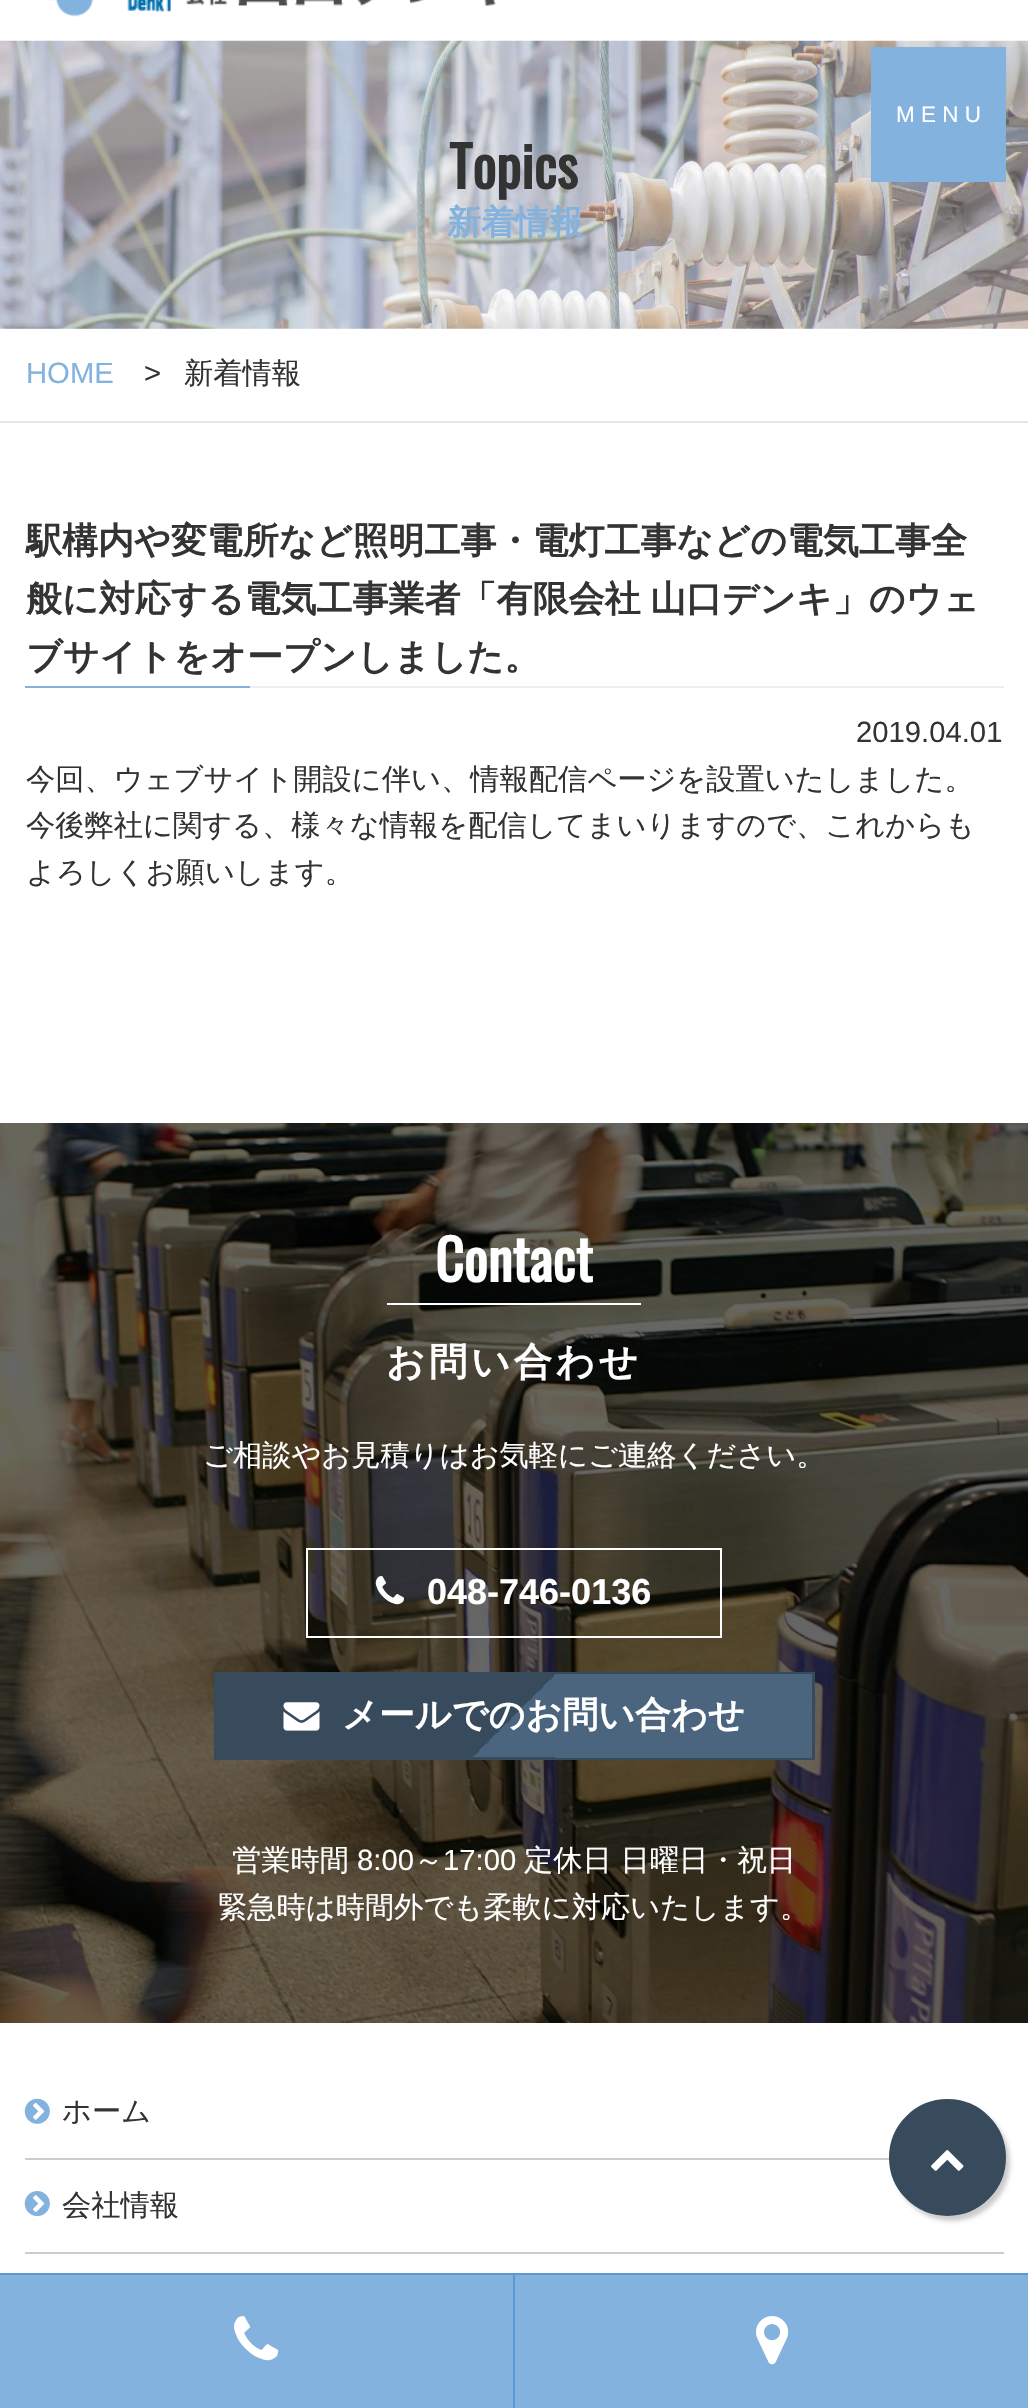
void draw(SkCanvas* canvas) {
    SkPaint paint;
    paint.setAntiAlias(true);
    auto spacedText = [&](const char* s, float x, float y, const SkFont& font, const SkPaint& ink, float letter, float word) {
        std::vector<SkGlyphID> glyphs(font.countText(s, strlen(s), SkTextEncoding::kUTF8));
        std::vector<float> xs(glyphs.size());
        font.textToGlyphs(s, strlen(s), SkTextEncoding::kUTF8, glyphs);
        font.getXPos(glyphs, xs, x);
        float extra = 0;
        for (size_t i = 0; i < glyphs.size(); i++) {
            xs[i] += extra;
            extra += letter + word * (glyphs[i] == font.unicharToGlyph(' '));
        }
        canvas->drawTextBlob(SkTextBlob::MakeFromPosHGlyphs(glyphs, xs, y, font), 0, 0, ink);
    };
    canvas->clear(0xFFFFFFFF);
    canvas->drawImageRect(SkImages::DeferredFromEncodedData(SkData::MakeFromFileName("img1.png")), SkRect::MakeXYWH(49, 0, 447, 17), SkSamplingOptions());
    canvas->drawImageRect(SkImages::DeferredFromEncodedData(SkData::MakeFromFileName("img2.png")), SkRect::MakeXYWH(0, 40, 1028, 289), SkSamplingOptions());
    paint.setColor(0xFF82B2DD);
    canvas->drawRect(SkRect::MakeXYWH(871, 47, 135, 135), paint);
    SkFont font1(fontMgr->matchFamilyStyle("Liberation Sans", SkFontStyle::Normal()), 22.5f);
    font1.setSubpixel(true);
    paint.setColor(0xFFFFFFFF);
    canvas->drawString("M E N U", 896, 122, font1, paint);
    SkFont font2(fontMgr->matchFamilyStyle("Oswald", SkFontStyle::Bold()), 56);
    font2.setSubpixel(true);
    paint.setColor(0xFF333333);
    canvas->drawString("Topics", 449, 189, font2, paint);
    SkFont font3(fontMgr->matchFamilyStyle("WenQuanYi Zen Hei", SkFontStyle::Bold()), 34);
    font3.setSubpixel(true);
    paint.setColor(0xFF82B2DD);
    canvas->drawString("新着情報", 447, 234, font3, paint);
    paint.setColor(0xFFE5E5E5);
    canvas->drawRect(SkRect::MakeXYWH(0, 421, 1028, 2), paint);
    SkFont font4(fontMgr->matchFamilyStyle("Liberation Sans", SkFontStyle::Normal()), 29.25f);
    font4.setSubpixel(true);
    paint.setColor(0xFF82B2DD);
    canvas->drawString("HOME", 26, 383, font4, paint);
    paint.setColor(0xFF333333);
    canvas->drawString(">", 144, 383, font4, paint);
    SkFont font5(fontMgr->matchFamilyStyle("WenQuanYi Zen Hei", SkFontStyle(500, SkFontStyle::kNormal_Width, SkFontStyle::kUpright_Slant)), 29.25f);
    font5.setSubpixel(true);
    canvas->drawString("新着情報", 184, 383, font5, paint);
    paint.setColor(0xFFEEEEEE);
    canvas->drawRect(SkRect::MakeXYWH(250, 686, 754, 2), paint);
    SkFont font6(fontMgr->matchFamilyStyle("WenQuanYi Zen Hei", SkFontStyle::Bold()), 36);
    font6.setSubpixel(true);
    paint.setColor(0xFF333333);
    canvas->drawString("駅構内や変電所など照明工事・電灯工事などの電気工事全", 26, 553, font6, paint);
    spacedText("般に対応する電気工事業者「有限会社 山口デンキ」のウェ", 26, 611, font6, paint, 0, -1);
    canvas->drawString("ブサイトをオープンしました。", 26, 669, font6, paint);
    paint.setColor(0xFF82B2DD);
    canvas->drawRect(SkRect::MakeXYWH(25, 686, 225, 2), paint);
    paint.setColor(0xFF333333);
    canvas->drawString("2019.04.01", 856, 742, font4, paint);
    canvas->drawString("今回、ウェブサイト開設に伴い、情報配信ページを設置いたしました。", 26, 789, font5, paint);
    canvas->drawString("今後弊社に関する、様々な情報を配信してまいりますので、これからも", 26, 835, font5, paint);
    canvas->drawString("よろしくお願いします。", 26, 882, font5, paint);
    canvas->drawImageRect(SkImages::DeferredFromEncodedData(SkData::MakeFromFileName("img3.png")), SkRect::MakeXYWH(0, 1123, 1028, 900), SkSamplingOptions());
    paint.setColor(0xFFFFFFFF);
    canvas->drawString("Contact", 435, 1282, font2, paint);
    canvas->drawRect(SkRect::MakeXYWH(387, 1303, 254, 2), paint);
    SkFont font7(fontMgr->matchFamilyStyle("WenQuanYi Zen Hei", SkFontStyle::Bold()), 38.25f);
    font7.setSubpixel(true);
    spacedText("お問い合わせ", 386, 1375, font7, paint, 3.75f, 0);
    canvas->drawString("ご相談やお見積りはお気軽にご連絡ください。", 203, 1465, font5, paint);
    paint.setStyle(SkPaint::kStroke_Style);
    paint.setStrokeWidth(2);
    canvas->drawRect(SkRect::MakeXYWH(307, 1549, 414, 88), paint);
    canvas->drawImageRect(SkImages::DeferredFromEncodedData(SkData::MakeFromFileName("img4.png")), SkRect::MakeXYWH(375, 1576, 29, 29), SkSamplingOptions());
    SkFont font8(fontMgr->matchFamilyStyle("Liberation Sans", SkFontStyle::Bold()), 36);
    font8.setSubpixel(true);
    paint.setStyle(SkPaint::kFill_Style);
    canvas->drawString("048-746-0136", 427, 1604, font8, paint);
    {
        const SkColor colors[] = {0xFF374B5D, 0xFF4A657D};
        const float stops[] = {0.5f, 0.5f};
        const SkPoint ends[] = {{344, 1546}, {684, 1886}};
        paint.setShader(SkGradientShader::MakeLinear(ends, colors, stops, 2, SkTileMode::kClamp));
        paint.setAlpha(255);
    }
    canvas->drawRect(SkRect::MakeXYWH(216, 1674, 596, 83), paint);
    {
        const SkColor colors[] = {0xFF374B5D, 0xFF4A657D};
        const float stops[] = {0.5f, 0.5f};
        const SkPoint ends[] = {{941, 1546}, {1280, 1886}};
        paint.setShader(SkGradientShader::MakeLinear(ends, colors, stops, 2, SkTileMode::kClamp));
        paint.setAlpha(255);
    }
    canvas->drawRect(SkRect::MakeXYWH(812, 1674, 1, 83), paint);
    {
        const SkColor colors[] = {0xFF374B5D, 0xFF4A657D};
        const float stops[] = {0.5f, 0.5f};
        const SkPoint ends[] = {{344, 1629}, {684, 1969}};
        paint.setShader(SkGradientShader::MakeLinear(ends, colors, stops, 2, SkTileMode::kClamp));
        paint.setAlpha(255);
    }
    canvas->drawRect(SkRect::MakeXYWH(216, 1757, 596, 1), paint);
    {
        const SkColor colors[] = {0xFF374B5D, 0xFF4A657D};
        const float stops[] = {0.5f, 0.5f};
        const SkPoint ends[] = {{941, 1629}, {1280, 1969}};
        paint.setShader(SkGradientShader::MakeLinear(ends, colors, stops, 2, SkTileMode::kClamp));
        paint.setAlpha(255);
    }
    canvas->drawRect(SkRect::MakeXYWH(812, 1757, 3, 1), paint);
    paint.setStyle(SkPaint::kStroke_Style);
    paint.setShader(nullptr);
    paint.setColor(0xFF374B5D);
    canvas->drawRect(SkRect::MakeXYWH(215, 1673, 599, 86), paint);
    canvas->drawImageRect(SkImages::DeferredFromEncodedData(SkData::MakeFromFileName("img5.png")), SkRect::MakeXYWH(283, 1702, 37, 29), SkSamplingOptions());
    paint.setStyle(SkPaint::kFill_Style);
    paint.setColor(0xFFFFFFFF);
    canvas->drawString("メールでのお問い合わせ", 342, 1727, font6, paint);
    canvas->drawString("営業時間", 232, 1870, font5, paint);
    canvas->drawString("8:00", 357, 1870, font4, paint);
    canvas->drawString("～", 414, 1870, font5, paint);
    canvas->drawString("17:00", 443, 1870, font4, paint);
    canvas->drawString("定休日 日曜日・祝日", 524, 1870, font5, paint);
    canvas->drawString("緊急時は時間外でも柔軟に対応いたします。", 218, 1917, font5, paint);
    paint.setColor(0xFFCCCCCC);
    canvas->drawRect(SkRect::MakeXYWH(25, 2158, 865, 2), paint);
    canvas->drawImageRect(SkImages::DeferredFromEncodedData(SkData::MakeFromFileName("img6.png")), SkRect::MakeXYWH(24, 2098, 26, 26), SkSamplingOptions());
    paint.setColor(0xFF333333);
    canvas->drawString("ホーム", 62, 2121, font5, paint);
    paint.setColor(0xFFCCCCCC);
    canvas->drawRect(SkRect::MakeXYWH(25, 2252, 979, 2), paint);
    canvas->drawImageRect(SkImages::DeferredFromEncodedData(SkData::MakeFromFileName("img7.png")), SkRect::MakeXYWH(24, 2191, 26, 26), SkSamplingOptions());
    paint.setColor(0xFF333333);
    canvas->drawString("会社情報", 62, 2215, font5, paint);
    paint.setColor(0x33000000);
    paint.setMaskFilter(SkMaskFilter::MakeBlur(kNormal_SkBlurStyle, 2));
    canvas->drawRoundRect(SkRect::MakeXYWH(893, 2104, 117, 117), 58.5f, 58.5f, paint);
    paint.setMaskFilter(nullptr);
    paint.setColor(0xFF374B5D);
    canvas->drawCircle(947.5f, 2157.5f, 57.5f, paint);
    paint.setStyle(SkPaint::kStroke_Style);
    canvas->drawCircle(947.5f, 2157.5f, 57.5f, paint);
    canvas->drawImageRect(SkImages::DeferredFromEncodedData(SkData::MakeFromFileName("img8.png")), SkRect::MakeXYWH(931, 2150, 33, 21), SkSamplingOptions());
    paint.setStyle(SkPaint::kFill_Style);
    paint.setColor(0xFF82B2DD);
    canvas->drawRect(SkRect::MakeXYWH(0, 2275, 1028, 133), paint);
    paint.setColor(0xFF5A99D2);
    canvas->drawRect(SkRect::MakeXYWH(0, 2273, 1028, 2), paint);
    canvas->drawRect(SkRect::MakeXYWH(513, 2275, 2, 133), paint);
    canvas->drawImageRect(SkImages::DeferredFromEncodedData(SkData::MakeFromFileName("img9.png")), SkRect::MakeXYWH(234, 2316, 45, 45), SkSamplingOptions());
    canvas->drawImageRect(SkImages::DeferredFromEncodedData(SkData::MakeFromFileName("img10.png")), SkRect::MakeXYWH(756, 2316, 33, 49), SkSamplingOptions());
}
